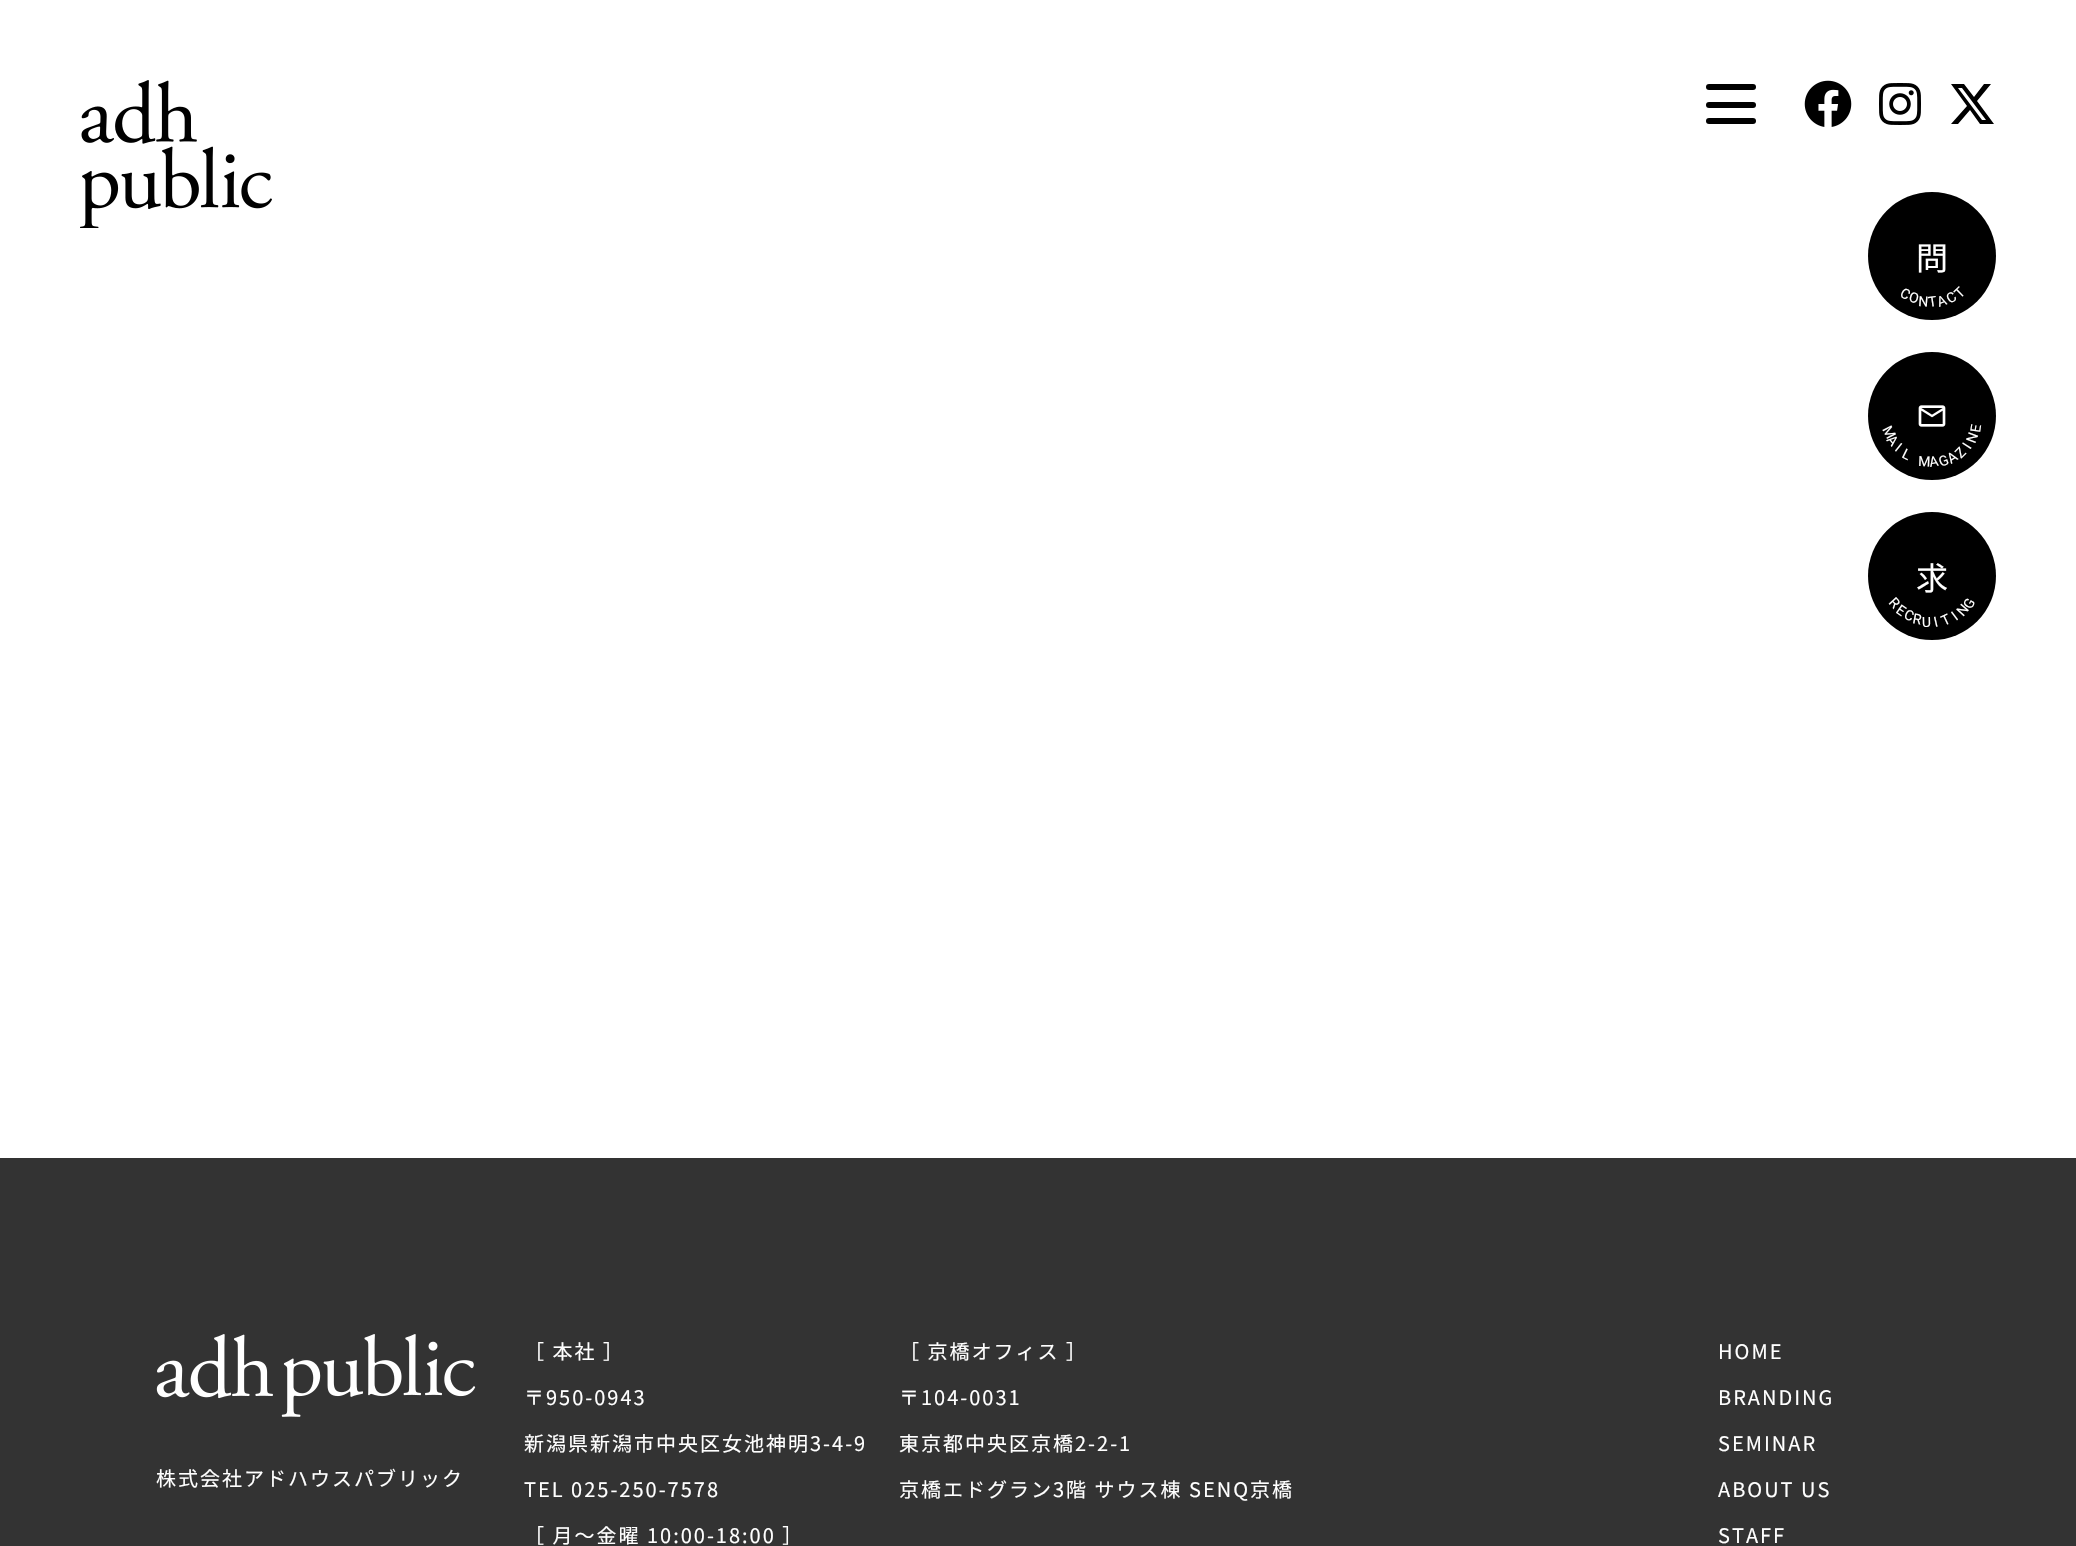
void draw(SkCanvas* canvas) {
    SkPaint paint;
    paint.setAntiAlias(true);
    auto spacedText = [&](const char* s, float x, float y, const SkFont& font, const SkPaint& ink, float letter, float word) {
        std::vector<SkGlyphID> glyphs(font.countText(s, strlen(s), SkTextEncoding::kUTF8));
        std::vector<float> xs(glyphs.size());
        font.textToGlyphs(s, strlen(s), SkTextEncoding::kUTF8, glyphs);
        font.getXPos(glyphs, xs, x);
        float extra = 0;
        for (size_t i = 0; i < glyphs.size(); i++) {
            xs[i] += extra;
            extra += letter + word * (glyphs[i] == font.unicharToGlyph(' '));
        }
        canvas->drawTextBlob(SkTextBlob::MakeFromPosHGlyphs(glyphs, xs, y, font), 0, 0, ink);
    };
    canvas->clear(0xFFFFFFFF);
    canvas->drawImageRect(SkImages::DeferredFromEncodedData(SkData::MakeFromFileName("img1.png")), SkRect::MakeXYWH(80, 80, 192, 148), SkSamplingOptions());
    paint.setColor(0xFF000000);
    canvas->drawRoundRect(SkRect::MakeXYWH(1706, 84, 50, 6), 3, 3, paint);
    canvas->drawRoundRect(SkRect::MakeXYWH(1706, 102, 50, 6), 3, 3, paint);
    canvas->drawRoundRect(SkRect::MakeXYWH(1706, 118, 50, 6), 3, 3, paint);
    canvas->drawImageRect(SkImages::DeferredFromEncodedData(SkData::MakeFromFileName("img2.png")), SkRect::MakeXYWH(1804, 80, 48, 47), SkSamplingOptions());
    canvas->drawImageRect(SkImages::DeferredFromEncodedData(SkData::MakeFromFileName("img3.png")), SkRect::MakeXYWH(1879, 83, 42, 42), SkSamplingOptions());
    canvas->drawPath(SkPathBuilder().moveTo(1984, 84).lineTo(1991, 84).lineTo(1977, 101).lineTo(1994, 124).lineTo(1980, 124).lineTo(1970, 110).lineTo(1958, 124).lineTo(1951, 124).lineTo(1967, 106).lineTo(1951, 84).lineTo(1964, 84).lineTo(1974, 97).close().moveTo(1982, 120).lineTo(1986, 120).lineTo(1962, 88).lineTo(1958, 88).close().detach(), paint);
    canvas->drawCircle(1932, 256, 64, paint);
    SkFont font1(fontMgr->matchFamilyStyle("Noto Sans JP", SkFontStyle::Normal()), 32);
    font1.setSubpixel(true);
    paint.setColor(0xFFFFFFFF);
    canvas->drawString("問", 1916, 270, font1, paint);
    SkFont font2(fontMgr->matchFamilyStyle("Roboto", SkFontStyle::Normal()), 14);
    font2.setSubpixel(true);
    canvas->save();
    canvas->rotate(28, 1899, 296);
    spacedText("C", 1899, 296, font2, paint, 12, 0);
    canvas->restore();
    canvas->save();
    canvas->rotate(16, 1908, 301);
    spacedText("O", 1908, 301, font2, paint, 12, 0);
    canvas->restore();
    canvas->save();
    canvas->rotate(4, 1918, 306);
    spacedText("N", 1918, 306, font2, paint, 12, 0);
    canvas->restore();
    canvas->save();
    canvas->rotate(-8, 1929, 307);
    spacedText("T", 1929, 307, font2, paint, 12, 0);
    canvas->restore();
    canvas->save();
    canvas->rotate(-20, 1939, 307);
    spacedText("A", 1939, 307, font2, paint, 12, 0);
    canvas->restore();
    canvas->save();
    canvas->rotate(-32, 1950, 304);
    spacedText("C", 1950, 304, font2, paint, 12, 0);
    canvas->restore();
    canvas->save();
    canvas->rotate(-44, 1960, 299);
    spacedText("T", 1960, 299, font2, paint, 12, 0);
    canvas->restore();
    paint.setColor(0xFF000000);
    canvas->drawCircle(1932, 416, 64, paint);
    canvas->drawImageRect(SkImages::DeferredFromEncodedData(SkData::MakeFromFileName("img4.png")), SkRect::MakeXYWH(1918, 405, 28, 22), SkSamplingOptions());
    paint.setColor(0xFFFFFFFF);
    canvas->save();
    canvas->rotate(62.4f, 1882, 429);
    spacedText("M", 1882, 429, font2, paint, 11, 0);
    canvas->restore();
    canvas->save();
    canvas->rotate(-81.6f, 1980, 433);
    spacedText("E", 1980, 433, font2, paint, 12, 0);
    canvas->restore();
    canvas->save();
    canvas->rotate(50.4f, 1886, 440);
    spacedText("A", 1886, 440, font2, paint, 12, 0);
    canvas->restore();
    canvas->save();
    canvas->rotate(38.4f, 1894, 450);
    spacedText("I", 1894, 450, font2, paint, 12, 0);
    canvas->restore();
    canvas->save();
    canvas->rotate(-69.6f, 1975, 444);
    spacedText("N", 1975, 444, font2, paint, 12, 0);
    canvas->restore();
    canvas->save();
    canvas->rotate(-9.6f, 1930, 467);
    spacedText("A", 1930, 467, font2, paint, 12, 0);
    canvas->restore();
    canvas->save();
    canvas->rotate(-21.6f, 1941, 467);
    spacedText("G", 1941, 467, font2, paint, 12, 0);
    canvas->restore();
    canvas->save();
    canvas->rotate(-33.6f, 1951, 464);
    spacedText("A", 1951, 464, font2, paint, 12, 0);
    canvas->restore();
    canvas->save();
    canvas->rotate(-45.6f, 1961, 459);
    spacedText("Z", 1961, 459, font2, paint, 12, 0);
    canvas->restore();
    canvas->save();
    canvas->rotate(-57.6f, 1970, 450);
    spacedText("I", 1970, 450, font2, paint, 12, 0);
    canvas->restore();
    canvas->save();
    canvas->rotate(26.4f, 1901, 457);
    spacedText("L", 1901, 457, font2, paint, 12, 0);
    canvas->restore();
    canvas->save();
    canvas->rotate(2.4f, 1918, 466);
    spacedText("M", 1918, 466, font2, paint, 11, 0);
    canvas->restore();
    paint.setColor(0xFF000000);
    canvas->drawCircle(1932, 576, 64, paint);
    paint.setColor(0xFFFFFFFF);
    canvas->drawString("求", 1916, 590, font1, paint);
    canvas->save();
    canvas->rotate(47, 1888, 603);
    spacedText("R", 1888, 603, font2, paint, 12, 0);
    canvas->restore();
    canvas->save();
    canvas->rotate(-37, 1956, 621);
    spacedText("I", 1956, 621, font2, paint, 12, 0);
    canvas->restore();
    canvas->save();
    canvas->rotate(-49, 1963, 617);
    spacedText("N", 1963, 617, font2, paint, 12, 0);
    canvas->restore();
    canvas->save();
    canvas->rotate(-61, 1971, 610);
    spacedText("G", 1971, 610, font2, paint, 12, 0);
    canvas->restore();
    canvas->save();
    canvas->rotate(35, 1895, 612);
    spacedText("E", 1895, 612, font2, paint, 12, 0);
    canvas->restore();
    canvas->save();
    canvas->rotate(23, 1903, 618);
    spacedText("C", 1903, 618, font2, paint, 12, 0);
    canvas->restore();
    canvas->save();
    canvas->rotate(11, 1912, 623);
    spacedText("R", 1912, 623, font2, paint, 12, 0);
    canvas->restore();
    canvas->save();
    canvas->rotate(-1, 1922, 627);
    spacedText("U", 1922, 627, font2, paint, 12, 0);
    canvas->restore();
    canvas->save();
    canvas->rotate(-13, 1935, 627);
    spacedText("I", 1935, 627, font2, paint, 12, 0);
    canvas->restore();
    canvas->save();
    canvas->rotate(-25, 1944, 626);
    spacedText("T", 1944, 626, font2, paint, 12, 0);
    canvas->restore();
    paint.setColor(0xFF333333);
    canvas->drawRect(SkRect::MakeXYWH(0, 1158, 2076, 388), paint);
    canvas->drawImageRect(SkImages::DeferredFromEncodedData(SkData::MakeFromFileName("img5.png")), SkRect::MakeXYWH(156, 1334, 320, 83), SkSamplingOptions());
    SkFont font3(fontMgr->matchFamilyStyle("Noto Sans JP", SkFontStyle::Normal()), 20);
    font3.setSubpixel(true);
    paint.setColor(0xFFFFFFFF);
    spacedText("株式会社アドハウスパブリック", 156, 1486, font3, paint, 2, 0);
    spacedText("［ 本社 ］", 524, 1359, font3, paint, 2, 0);
    spacedText("〒950-0943", 524, 1405, font3, paint, 2, 0);
    spacedText("新潟県新潟市中央区女池神明3-4-9", 524, 1451, font3, paint, 2, 0);
    spacedText("TEL 025-250-7578", 524, 1497, font3, paint, 2, 0);
    spacedText("［ 月〜金曜 10:00-18:00 ］", 524, 1543, font3, paint, 2, 0);
    spacedText("［ 京橋オフィス", 899, 1359, font3, paint, 2, 0);
    spacedText("］", 1066, 1359, font3, paint, 2, 0);
    spacedText("〒104-0031", 899, 1405, font3, paint, 2, 0);
    spacedText("東京都中央区京橋2-2-1", 899, 1451, font3, paint, 2, 0);
    spacedText("京橋エドグラン3階 サウス棟 SENQ京橋", 899, 1497, font3, paint, 2, 0);
    spacedText("HOME", 1718, 1359, font3, paint, 2, 0);
    spacedText("BRANDING", 1718, 1405, font3, paint, 2, 0);
    spacedText("SEMINAR", 1718, 1451, font3, paint, 2, 0);
    spacedText("ABOUT US", 1718, 1497, font3, paint, 2, 0);
    spacedText("STAFF", 1718, 1543, font3, paint, 2, 0);
}
